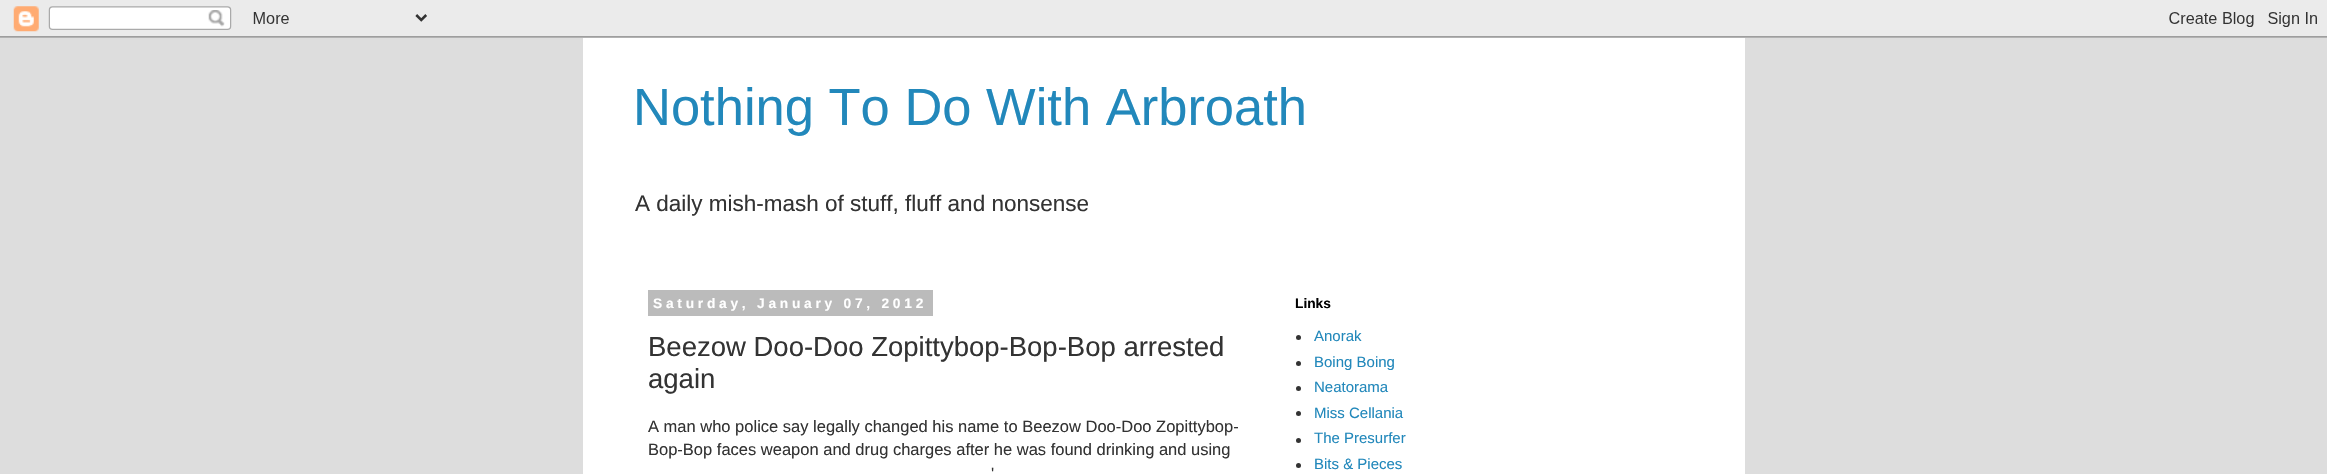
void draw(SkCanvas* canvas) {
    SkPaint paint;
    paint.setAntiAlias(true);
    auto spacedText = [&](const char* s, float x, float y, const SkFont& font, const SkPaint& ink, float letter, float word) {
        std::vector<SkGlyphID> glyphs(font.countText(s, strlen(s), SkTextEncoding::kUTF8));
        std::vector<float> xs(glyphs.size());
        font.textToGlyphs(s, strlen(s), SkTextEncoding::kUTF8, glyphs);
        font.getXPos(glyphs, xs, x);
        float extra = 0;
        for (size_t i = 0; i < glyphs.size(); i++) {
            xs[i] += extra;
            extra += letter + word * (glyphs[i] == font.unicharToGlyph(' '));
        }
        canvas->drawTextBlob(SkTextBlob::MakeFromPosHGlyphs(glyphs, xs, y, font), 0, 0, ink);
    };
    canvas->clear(0xFFDDDDDD);
    canvas->drawImageRect(SkImages::DeferredFromEncodedData(SkData::MakeFromFileName("img1.png")), SkRect::MakeXYWH(0, 0, 2327, 38), SkSamplingOptions());
    paint.setColor(0xFFFFFFFF);
    canvas->drawRect(SkRect::MakeXYWH(583, 38, 1162, 436), paint);
    SkFont font1(fontMgr->matchFamilyStyle("Liberation Sans", SkFontStyle::Normal()), 52.5f);
    font1.setSubpixel(true);
    paint.setColor(0xFF2288BB);
    canvas->drawString("Nothing To Do With Arbroath", 633, 125, font1, paint);
    SkFont font2(fontMgr->matchFamilyStyle("Liberation Sans", SkFontStyle::Normal()), 22.5f);
    font2.setSubpixel(true);
    paint.setColor(0xFF333333);
    canvas->drawString("A daily mish-mash of stuff, fluff and nonsense", 635, 211, font2, paint);
    paint.setColor(0xFFBBBBBB);
    canvas->drawRect(SkRect::MakeXYWH(648, 290, 285, 26), paint);
    SkFont font3(fontMgr->matchFamilyStyle("Liberation Sans", SkFontStyle::Bold()), 13.75f);
    font3.setSubpixel(true);
    paint.setColor(0xFFFFFFFF);
    spacedText("Saturday, January 07, 2012", 653, 308, font3, paint, 3.75f, 0);
    SkFont font4(fontMgr->matchFamilyStyle("Liberation Sans", SkFontStyle::Normal()), 27.5f);
    font4.setSubpixel(true);
    paint.setColor(0xFF333333);
    canvas->drawString("Beezow Doo-Doo Zopittybop-Bop-Bop arrested", 648, 356, font4, paint);
    canvas->drawString("again", 648, 388, font4, paint);
    SkFont font5(fontMgr->matchFamilyStyle("Liberation Sans", SkFontStyle::Normal()), 16.5f);
    font5.setSubpixel(true);
    canvas->drawString("A man who police say legally changed his name to Beezow Doo-Doo Zopittybop-", 648, 432, font5, paint);
    canvas->drawString("Bop-Bop faces weapon and drug charges after he was found drinking and using", 648, 455, font5, paint);
    canvas->drawString("'", 991, 479, font5, paint);
    paint.setColor(0xFF000000);
    canvas->drawString("Links", 1295, 308, font3, paint);
    paint.setColor(0xFF333333);
    canvas->drawCircle(1298.5f, 337.5f, 2.5f, paint);
    SkFont font6(fontMgr->matchFamilyStyle("Liberation Sans", SkFontStyle::Normal()), 15);
    font6.setSubpixel(true);
    paint.setColor(0xFF2288BB);
    canvas->drawString("Anorak", 1314, 341, font6, paint);
    paint.setColor(0xFF333333);
    canvas->drawCircle(1298.5f, 363.5f, 2.5f, paint);
    paint.setColor(0xFF2288BB);
    canvas->drawString("Boing Boing", 1314, 367, font6, paint);
    paint.setColor(0xFF333333);
    canvas->drawCircle(1298.5f, 388.5f, 2.5f, paint);
    paint.setColor(0xFF2288BB);
    canvas->drawString("Neatorama", 1314, 392, font6, paint);
    paint.setColor(0xFF333333);
    canvas->drawCircle(1298.5f, 413.5f, 2.5f, paint);
    paint.setColor(0xFF2288BB);
    canvas->drawString("Miss Cellania", 1314, 418, font6, paint);
    paint.setColor(0xFF333333);
    canvas->drawCircle(1298.5f, 440.5f, 2.5f, paint);
    paint.setColor(0xFF2288BB);
    canvas->drawString("The Presurfer", 1314, 443, font6, paint);
    paint.setColor(0xFF333333);
    canvas->drawCircle(1298.5f, 465.5f, 2.5f, paint);
    paint.setColor(0xFF2288BB);
    canvas->drawString("Bits & Pieces", 1314, 469, font6, paint);
}
